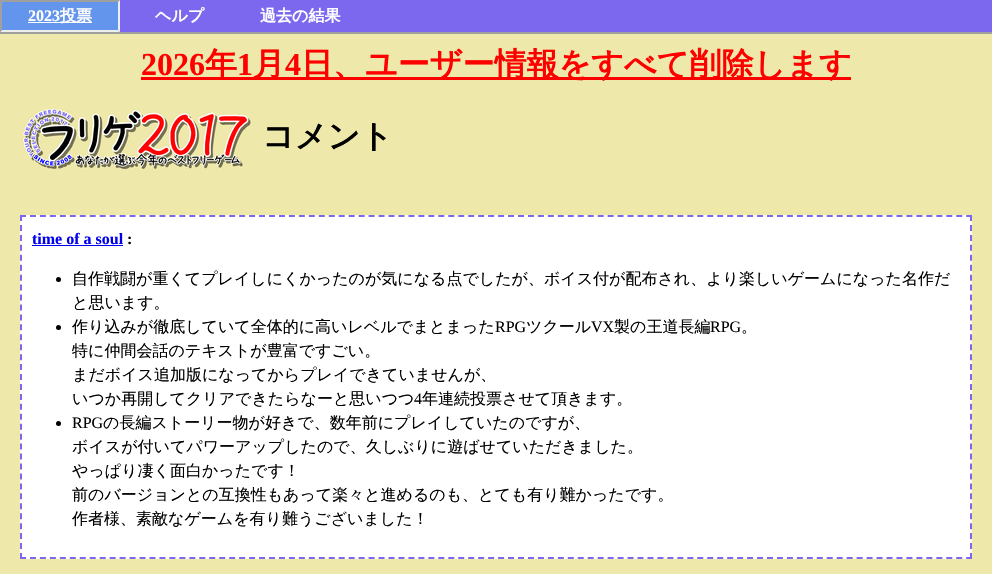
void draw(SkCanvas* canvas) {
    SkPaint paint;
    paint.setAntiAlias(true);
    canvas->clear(0xFFEEE8AA);
    paint.setColor(0xFF7B68EE);
    canvas->drawRect(SkRect::MakeXYWH(120, 0, 872, 32), paint);
    paint.setColor(0xFF9F9F9F);
    canvas->drawRect(SkRect::MakeXYWH(0, 32, 992, 2), paint);
    paint.setColor(0xFF6495ED);
    canvas->drawRect(SkRect::MakeXYWH(0, 0, 120, 32), paint);
    paint.setColor(0xFF9F9F9F);
    canvas->drawPath(SkPathBuilder().moveTo(0, 0).lineTo(120, 0).lineTo(118, 2).lineTo(2, 2).close().detach(), paint);
    paint.setColor(0xFFEEEEEE);
    canvas->drawPath(SkPathBuilder().moveTo(120, 0).lineTo(120, 32).lineTo(118, 30).lineTo(118, 2).close().detach(), paint);
    canvas->drawPath(SkPathBuilder().moveTo(120, 32).lineTo(0, 32).lineTo(2, 30).lineTo(118, 30).close().detach(), paint);
    paint.setColor(0xFF9F9F9F);
    canvas->drawPath(SkPathBuilder().moveTo(0, 32).lineTo(0, 0).lineTo(2, 2).lineTo(2, 30).close().detach(), paint);
    SkFont font1(fontMgr->matchFamilyStyle("Liberation Serif", SkFontStyle::Bold()), 16);
    font1.setSubpixel(true);
    paint.setColor(0xFFFFFFFF);
    canvas->drawString("2023", 28, 21, font1, paint);
    canvas->drawRect(SkRect::MakeXYWH(28, 22, 64, 1), paint);
    SkFont font2(fontMgr->matchFamilyStyle("WenQuanYi Zen Hei", SkFontStyle::Bold()), 16);
    font2.setSubpixel(true);
    canvas->drawString("投票", 60, 21, font2, paint);
    canvas->drawString("ヘルプ", 155, 21, font2, paint);
    canvas->drawString("過去の結果", 260, 21, font2, paint);
    SkFont font3(fontMgr->matchFamilyStyle("Liberation Serif", SkFontStyle::Bold()), 32);
    font3.setSubpixel(true);
    paint.setColor(0xFFFF0000);
    canvas->drawString("2026", 141, 75, font3, paint);
    canvas->drawRect(SkRect::MakeXYWH(141, 77, 710, 3), paint);
    SkFont font4(fontMgr->matchFamilyStyle("WenQuanYi Zen Hei", SkFontStyle::Bold()), 32);
    font4.setSubpixel(true);
    canvas->drawString("年", 205, 75, font4, paint);
    canvas->drawString("1", 237, 75, font3, paint);
    canvas->drawString("月", 253, 75, font4, paint);
    canvas->drawString("4", 285, 75, font3, paint);
    canvas->drawString("日、ユーザー情報をすべて削除します", 301, 75, font4, paint);
    canvas->drawImageRect(SkImages::DeferredFromEncodedData(SkData::MakeFromFileName("img1.png")), SkRect::MakeXYWH(22, 109, 230, 60), SkSamplingOptions());
    paint.setColor(0xFF000000);
    canvas->drawString("コメント", 262, 147, font4, paint);
    paint.setColor(0xFFFFFFFF);
    canvas->drawRect(SkRect::MakeXYWH(20, 215, 952, 344), paint);
    paint.setStyle(SkPaint::kStroke_Style);
    paint.setStrokeWidth(2);
    paint.setColor(0xFF7B68EE);
    paint.setPathEffect(SkDashPathEffect::Make({{6, 3.96f}}, 0));
    canvas->drawPath(SkPathBuilder().moveTo(20, 216).lineTo(972, 216).detach(), paint);
    paint.setPathEffect(nullptr);
    paint.setPathEffect(SkDashPathEffect::Make({{6, 3.94f}}, 0));
    canvas->drawPath(SkPathBuilder().moveTo(971, 215).lineTo(971, 559).detach(), paint);
    paint.setPathEffect(nullptr);
    paint.setPathEffect(SkDashPathEffect::Make({{6, 3.96f}}, 0));
    canvas->drawPath(SkPathBuilder().moveTo(20, 558).lineTo(972, 558).detach(), paint);
    paint.setPathEffect(nullptr);
    paint.setPathEffect(SkDashPathEffect::Make({{6, 3.94f}}, 0));
    canvas->drawPath(SkPathBuilder().moveTo(21, 215).lineTo(21, 559).detach(), paint);
    paint.setPathEffect(nullptr);
    paint.setStyle(SkPaint::kFill_Style);
    paint.setColor(0xFF0000EE);
    canvas->drawString("time of a soul", 32, 244, font1, paint);
    canvas->drawRect(SkRect::MakeXYWH(32, 245, 91, 1), paint);
    paint.setColor(0xFF000000);
    canvas->drawString(":", 127, 244, font1, paint);
    canvas->drawCircle(58.5f, 279.5f, 2.5f, paint);
    SkFont font5(fontMgr->matchFamilyStyle("WenQuanYi Zen Hei", SkFontStyle(500, SkFontStyle::kNormal_Width, SkFontStyle::kUpright_Slant)), 16);
    font5.setSubpixel(true);
    canvas->drawString("自作戦闘が重くてプレイしにくかったのが気になる点でしたが、ボイス付が配布され、より楽しいゲームになった名作だ", 72, 284, font5, paint);
    canvas->drawString("と思います。", 72, 308, font5, paint);
    canvas->drawCircle(58.5f, 327.5f, 2.5f, paint);
    canvas->drawString("作り込みが徹底していて全体的に高いレベルでまとまった", 72, 332, font5, paint);
    SkFont font6(fontMgr->matchFamilyStyle("Liberation Serif", SkFontStyle::Normal()), 16);
    font6.setSubpixel(true);
    canvas->drawString("RPG", 495, 332, font6, paint);
    canvas->drawString("ツクール", 526, 332, font5, paint);
    canvas->drawString("VX", 591, 332, font6, paint);
    canvas->drawString("製の王道長編", 614, 332, font5, paint);
    canvas->drawString("RPG", 710, 332, font6, paint);
    canvas->drawString("。", 741, 332, font5, paint);
    canvas->drawString("特に仲間会話のテキストが豊富ですごい。", 72, 356, font5, paint);
    canvas->drawString("まだボイス追加版になってからプレイできていませんが、", 72, 380, font5, paint);
    canvas->drawString("いつか再開してクリアできたらなーと思いつつ", 72, 404, font5, paint);
    canvas->drawString("4", 414, 404, font6, paint);
    canvas->drawString("年連続投票させて頂きます。", 422, 404, font5, paint);
    canvas->drawCircle(58.5f, 423.5f, 2.5f, paint);
    canvas->drawString("RPG", 72, 428, font6, paint);
    canvas->drawString("の長編ストーリー物が好きで、数年前にプレイしていたのですが、", 103, 428, font5, paint);
    canvas->drawString("ボイスが付いてパワーアップしたので、久しぶりに遊ばせていただきました。", 72, 452, font5, paint);
    canvas->drawString("やっぱり凄く面白かったです！", 72, 476, font5, paint);
    canvas->drawString("前のバージョンとの互換性もあって楽々と進めるのも、とても有り難かったです。", 72, 500, font5, paint);
    canvas->drawString("作者様、素敵なゲームを有り難うございました！", 72, 524, font5, paint);
}
